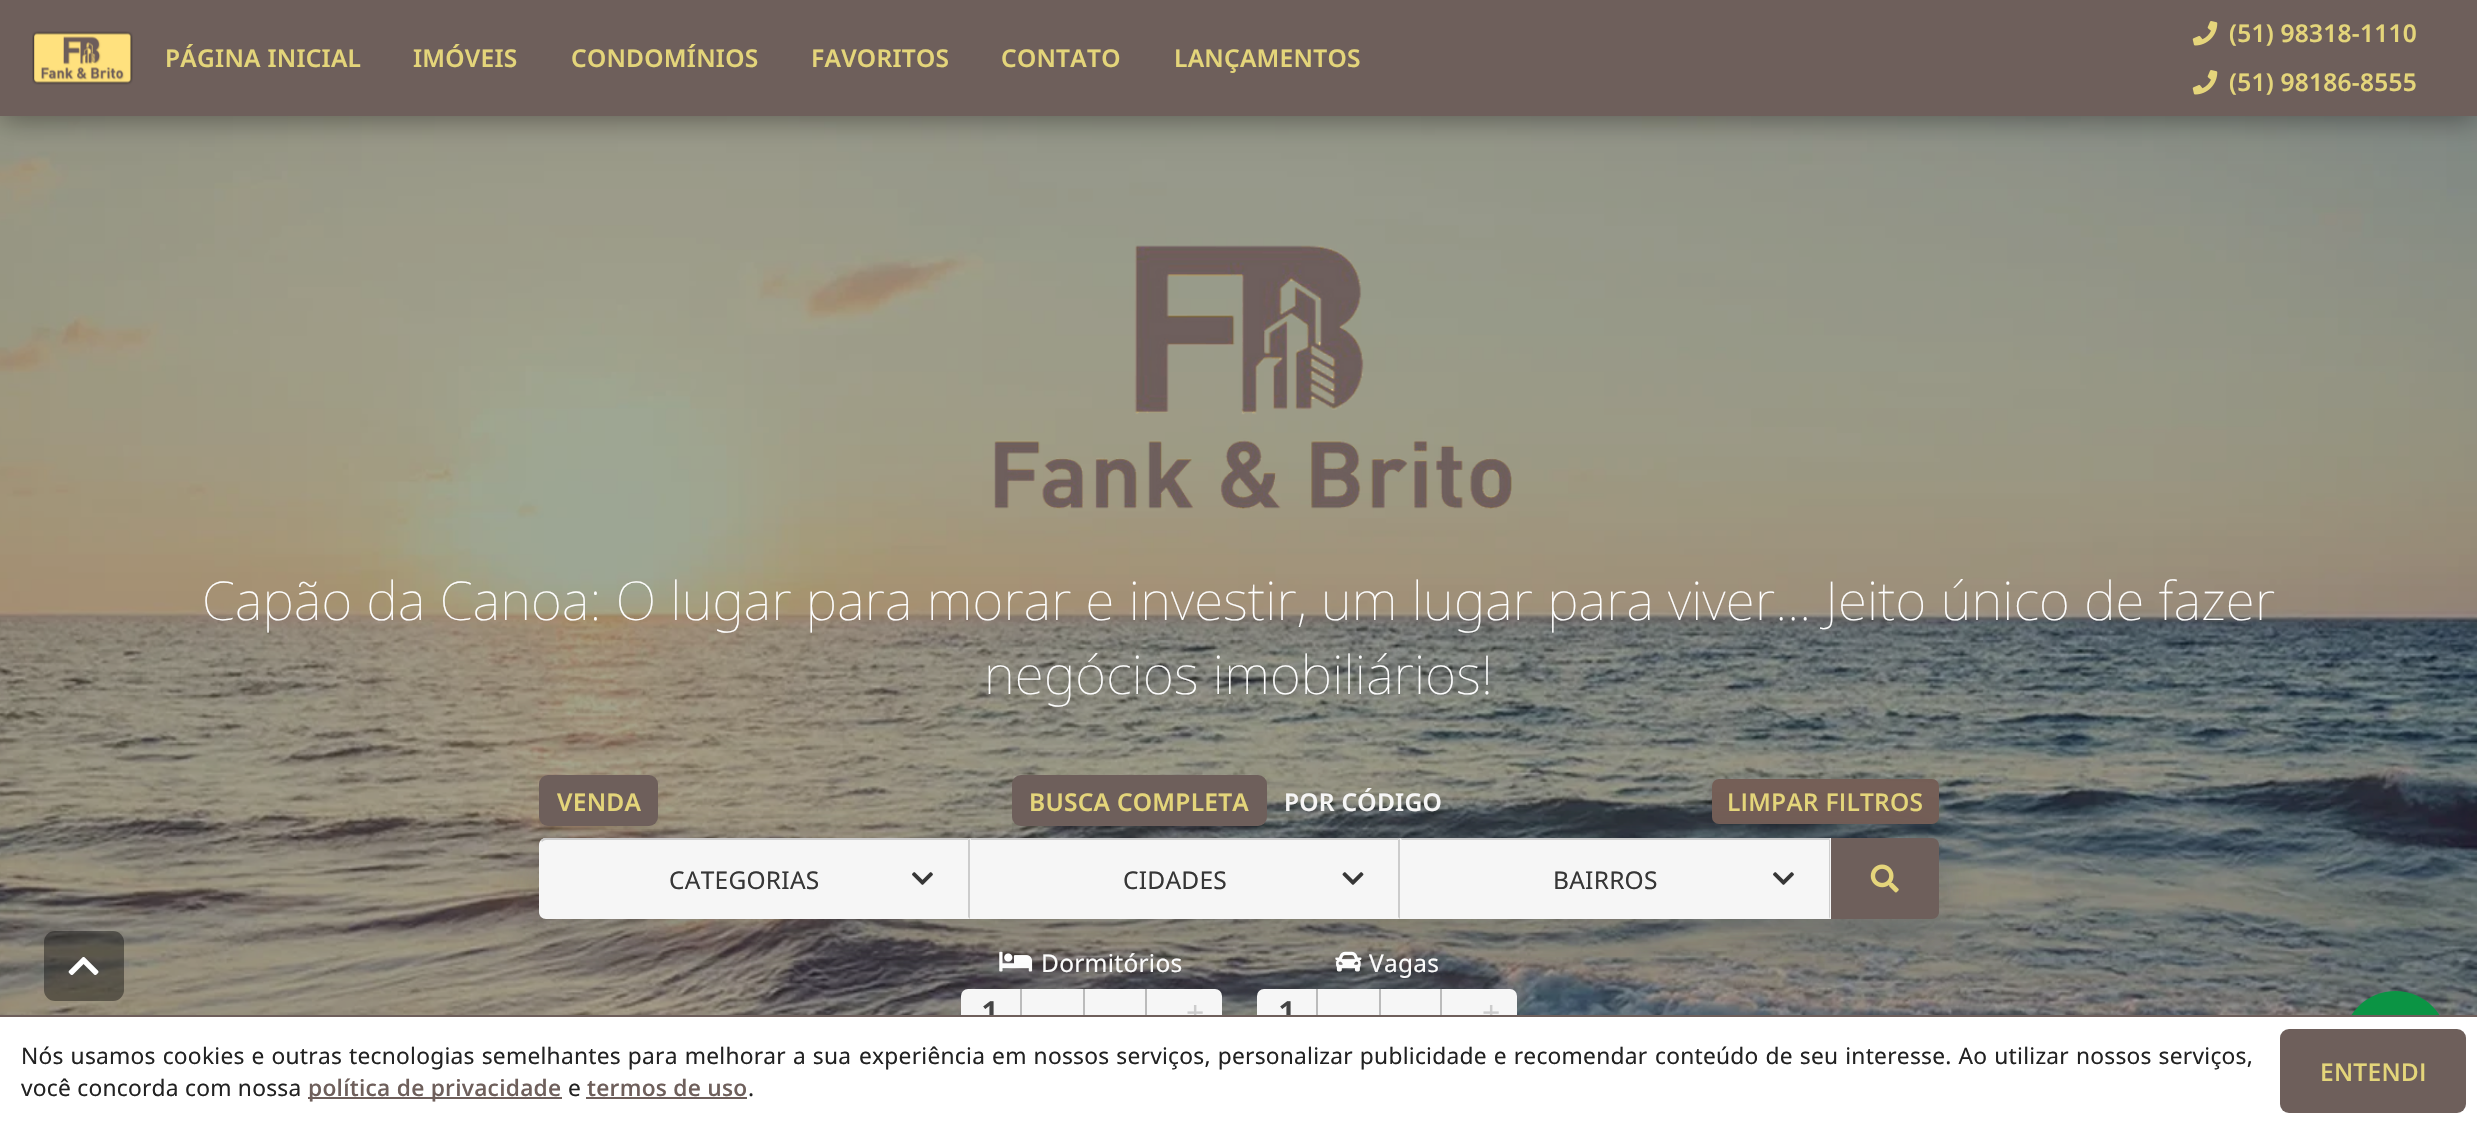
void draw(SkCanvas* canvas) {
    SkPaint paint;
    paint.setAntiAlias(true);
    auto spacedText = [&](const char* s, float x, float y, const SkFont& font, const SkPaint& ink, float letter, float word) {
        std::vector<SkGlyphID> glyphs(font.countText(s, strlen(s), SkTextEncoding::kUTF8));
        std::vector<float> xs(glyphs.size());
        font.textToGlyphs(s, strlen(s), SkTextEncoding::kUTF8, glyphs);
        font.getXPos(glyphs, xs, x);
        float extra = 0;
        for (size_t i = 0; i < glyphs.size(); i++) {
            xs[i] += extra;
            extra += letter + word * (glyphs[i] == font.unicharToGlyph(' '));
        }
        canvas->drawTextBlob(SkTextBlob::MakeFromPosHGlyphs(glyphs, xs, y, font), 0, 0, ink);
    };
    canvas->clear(0xFFFFFFFF);
    canvas->drawImageRect(SkImages::DeferredFromEncodedData(SkData::MakeFromFileName("img3.png")), SkRect::MakeXYWH(0, 116, 2477, 899), SkSamplingOptions());
    paint.setColor(0x66000000);
    paint.setMaskFilter(SkMaskFilter::MakeBlur(kNormal_SkBlurStyle, 14));
    canvas->drawRect(SkRect::MakeXYWH(0, 4, 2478, 115), paint);
    paint.setMaskFilter(nullptr);
    paint.setColor(0xFF6E5F5B);
    canvas->drawRect(SkRect::MakeXYWH(0, 0, 2477, 116), paint);
    canvas->drawImageRect(SkImages::DeferredFromEncodedData(SkData::MakeFromFileName("img1.png")), SkRect::MakeXYWH(32, 31, 101, 54), SkSamplingOptions());
    SkFont font1(fontMgr->matchFamilyStyle("Noto Sans", SkFontStyle(600, SkFontStyle::kNormal_Width, SkFontStyle::kUpright_Slant)), 24.5f);
    font1.setSubpixel(true);
    paint.setColor(0xFFE4D57A);
    spacedText("PÁGINA INICIAL", 165, 67, font1, paint, 0.25f, 0);
    spacedText("IMÓVEIS", 413, 67, font1, paint, 0.25f, 0);
    spacedText("CONDOMÍNIOS", 571, 67, font1, paint, 0.25f, 0);
    spacedText("FAVORITOS", 811, 67, font1, paint, 0.25f, 0);
    spacedText("CONTATO", 1001, 67, font1, paint, 0.25f, 0);
    spacedText("LANÇAMENTOS", 1174, 67, font1, paint, 0.25f, 0);
    canvas->drawImageRect(SkImages::DeferredFromEncodedData(SkData::MakeFromFileName("img2.png")), SkRect::MakeXYWH(2192, 21, 26, 25), SkSamplingOptions());
    spacedText("(51) 98318-1110", 2229, 42, font1, paint, 0.25f, 0);
    canvas->drawImageRect(SkImages::DeferredFromEncodedData(SkData::MakeFromFileName("img2.png")), SkRect::MakeXYWH(2192, 70, 26, 25), SkSamplingOptions());
    spacedText("(51) 98186-8555", 2229, 91, font1, paint, 0.25f, 0);
    canvas->drawImageRect(SkImages::DeferredFromEncodedData(SkData::MakeFromFileName("img4.png")), SkRect::MakeXYWH(994, 245, 518, 264), SkSamplingOptions());
    SkFont font2(fontMgr->matchFamilyStyle("Noto Sans", SkFontStyle(100, SkFontStyle::kNormal_Width, SkFontStyle::kUpright_Slant)), 53.4f);
    font2.setSubpixel(true);
    paint.setColor(0xFFFFFFFF);
    spacedText("Capão da Canoa: O lugar para morar e investir, um lugar para viver... Jeito único de fazer", 202, 620, font2, paint, 0.25f, 0);
    spacedText("negócios imobiliários!", 984, 694, font2, paint, 0.25f, 0);
    canvas->save();
    canvas->clipRect(SkRect::MakeXYWH(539, 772, 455, 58));
    paint.setColor(0x1A000000);
    paint.setMaskFilter(SkMaskFilter::MakeBlur(kNormal_SkBlurStyle, 5));
    canvas->drawRoundRect(SkRect::MakeXYWH(541, 784, 115, 47), 7, 7, paint);
    paint.setMaskFilter(nullptr);
    canvas->restore();
    paint.setMaskFilter(SkMaskFilter::MakeBlur(kNormal_SkBlurStyle, 5));
    canvas->drawRoundRect(SkRect::MakeXYWH(1713, 788, 224, 42), 5, 5, paint);
    paint.setMaskFilter(nullptr);
    paint.setColor(0xFF745E56);
    canvas->drawRoundRect(SkRect::MakeXYWH(1712, 779, 227, 45), 7, 7, paint);
    paint.setColor(0x4D3B4047);
    paint.setMaskFilter(SkMaskFilter::MakeBlur(kNormal_SkBlurStyle, 30));
    canvas->drawRoundRect(SkRect::MakeXYWH(539, 852, 1400, 81), 7, 7, paint);
    paint.setMaskFilter(nullptr);
    paint.setColor(0xFF6E5F5B);
    canvas->drawRoundRect(SkRect::MakeXYWH(539, 775, 119, 51), 9, 9, paint);
    paint.setColor(0xFFE4D57A);
    spacedText("VENDA", 557, 811, font1, paint, 0.25f, 0);
    canvas->save();
    canvas->clipRect(SkRect::MakeXYWH(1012, 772, 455, 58));
    paint.setColor(0x1A000000);
    paint.setMaskFilter(SkMaskFilter::MakeBlur(kNormal_SkBlurStyle, 5));
    canvas->drawRoundRect(SkRect::MakeXYWH(1013, 784, 252, 47), 7, 7, paint);
    paint.setMaskFilter(nullptr);
    canvas->restore();
    paint.setColor(0xFF6E5F5B);
    canvas->drawRoundRect(SkRect::MakeXYWH(1012, 775, 255, 51), 9, 9, paint);
    paint.setColor(0xFFE4D57A);
    spacedText("BUSCA COMPLETA", 1029, 811, font1, paint, 0.25f, 0);
    paint.setColor(0xFFF6F6F6);
    spacedText("POR CÓDIGO", 1284, 811, font1, paint, 0.25f, 0);
    SkFont font3(fontMgr->matchFamilyStyle("Open Sans", SkFontStyle(600, SkFontStyle::kNormal_Width, SkFontStyle::kUpright_Slant)), 24.5f);
    font3.setSubpixel(true);
    paint.setColor(0xFFE4D57A);
    spacedText("LIMPAR FILTROS", 1727, 811, font3, paint, 0.25f, 0);
    paint.setColor(0xFFF6F6F6);
    canvas->drawPath(SkPathBuilder().moveTo(546, 838).lineTo(970, 838).lineTo(970, 919).lineTo(546, 919).cubicTo(542, 919, 539, 916, 539, 912).lineTo(539, 845).cubicTo(539, 841, 542, 838, 546, 838).close().detach(), paint);
    paint.setColor(0xFFCCCCCC);
    canvas->drawPath(SkPathBuilder().moveTo(546, 840).cubicTo(544, 840, 543, 841, 542, 842).lineTo(541, 840).lineTo(544, 838).lineTo(970, 838).lineTo(968, 840).close().detach(), paint);
    canvas->drawPath(SkPathBuilder().moveTo(970, 838).lineTo(968, 840).lineTo(968, 917).lineTo(970, 919).close().detach(), paint);
    SkFont font4(fontMgr->matchFamilyStyle("Noto Sans", SkFontStyle::Normal()), 24.5f);
    font4.setSubpixel(true);
    paint.setColor(0xFF363636);
    spacedText("CATEGORIAS", 669, 889, font4, paint, 0.25f, 0);
    canvas->drawImageRect(SkImages::DeferredFromEncodedData(SkData::MakeFromFileName("img5.png")), SkRect::MakeXYWH(912, 872, 21, 13), SkSamplingOptions());
    paint.setColor(0xFFF6F6F6);
    canvas->drawRect(SkRect::MakeXYWH(970, 838, 861, 81), paint);
    paint.setColor(0xFFCCCCCC);
    canvas->drawPath(SkPathBuilder().moveTo(970, 838).lineTo(1400, 838).lineTo(1398, 840).lineTo(971, 840).close().detach(), paint);
    canvas->drawPath(SkPathBuilder().moveTo(1400, 838).lineTo(1400, 919).lineTo(1398, 917).lineTo(1398, 840).close().detach(), paint);
    paint.setColor(0xFF363636);
    spacedText("CIDADES", 1123, 889, font4, paint, 0.25f, 0);
    canvas->drawImageRect(SkImages::DeferredFromEncodedData(SkData::MakeFromFileName("img6.png")), SkRect::MakeXYWH(1342, 872, 22, 13), SkSamplingOptions());
    paint.setColor(0xFFCCCCCC);
    canvas->drawPath(SkPathBuilder().moveTo(1400, 838).lineTo(1830, 838).lineTo(1829, 840).lineTo(1402, 840).close().detach(), paint);
    canvas->drawPath(SkPathBuilder().moveTo(1830, 838).lineTo(1830, 919).lineTo(1829, 917).lineTo(1829, 840).close().detach(), paint);
    paint.setColor(0xFF363636);
    spacedText("BAIRROS", 1553, 889, font4, paint, 0.25f, 0);
    canvas->drawImageRect(SkImages::DeferredFromEncodedData(SkData::MakeFromFileName("img5.png")), SkRect::MakeXYWH(1773, 872, 21, 13), SkSamplingOptions());
    paint.setColor(0xFF6E5F5B);
    canvas->drawPath(SkPathBuilder().moveTo(1831, 838).lineTo(1932, 838).cubicTo(1936, 838, 1939, 841, 1939, 845).lineTo(1939, 912).cubicTo(1939, 916, 1936, 919, 1932, 919).lineTo(1831, 919).close().detach(), paint);
    canvas->drawImageRect(SkImages::DeferredFromEncodedData(SkData::MakeFromFileName("img7.png")), SkRect::MakeXYWH(1870, 864, 29, 29), SkSamplingOptions());
    canvas->drawImageRect(SkImages::DeferredFromEncodedData(SkData::MakeFromFileName("img8.png")), SkRect::MakeXYWH(999, 951, 34, 21), SkSamplingOptions());
    paint.setColor(0xFFFFFFFF);
    spacedText("Dormitórios", 1041, 972, font4, paint, 0.25f, 0);
    canvas->save();
    canvas->clipRect(SkRect::MakeXYWH(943, 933, 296, 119));
    paint.setColor(0x4D3B4047);
    paint.setMaskFilter(SkMaskFilter::MakeBlur(kNormal_SkBlurStyle, 24.5f));
    canvas->drawRoundRect(SkRect::MakeXYWH(961, 1003, 261, 44), 7, 7, paint);
    paint.setMaskFilter(nullptr);
    canvas->restore();
    paint.setColor(0xFFF6F6F6);
    canvas->drawRoundRect(SkRect::MakeXYWH(961, 989, 261, 44), 7, 7, paint);
    paint.setColor(0xFFBBBBBB);
    canvas->drawRect(SkRect::MakeXYWH(1020, 989, 2, 26), paint);
    SkFont font5(fontMgr->matchFamilyStyle("Noto Sans", SkFontStyle(600, SkFontStyle::kNormal_Width, SkFontStyle::kUpright_Slant)), 32);
    font5.setSubpixel(true);
    paint.setColor(0xFF444444);
    spacedText("1", 981, 1024, font5, paint, 0.25f, 0);
    paint.setColor(0xFFBBBBBB);
    canvas->drawRect(SkRect::MakeXYWH(1083, 989, 2, 26), paint);
    canvas->drawRect(SkRect::MakeXYWH(1145, 989, 2, 26), paint);
    SkFont font6(fontMgr->matchFamilyStyle("Noto Sans", SkFontStyle::Normal()), 32);
    font6.setSubpixel(true);
    paint.setColor(0xFFCCCCCC);
    spacedText("+", 1186, 1024, font6, paint, 0.25f, 0);
    canvas->drawImageRect(SkImages::DeferredFromEncodedData(SkData::MakeFromFileName("img9.png")), SkRect::MakeXYWH(1335, 951, 27, 21), SkSamplingOptions());
    paint.setColor(0xFFFFFFFF);
    spacedText("Vagas", 1369, 972, font4, paint, 0.25f, 0);
    canvas->save();
    canvas->clipRect(SkRect::MakeXYWH(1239, 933, 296, 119));
    paint.setColor(0x4D3B4047);
    paint.setMaskFilter(SkMaskFilter::MakeBlur(kNormal_SkBlurStyle, 24.5f));
    canvas->drawRoundRect(SkRect::MakeXYWH(1257, 1003, 260, 44), 7, 7, paint);
    paint.setMaskFilter(nullptr);
    canvas->restore();
    paint.setColor(0xFFF6F6F6);
    canvas->drawRoundRect(SkRect::MakeXYWH(1257, 989, 260, 44), 7, 7, paint);
    paint.setColor(0xFFBBBBBB);
    canvas->drawRect(SkRect::MakeXYWH(1316, 989, 2, 26), paint);
    paint.setColor(0xFF444444);
    spacedText("1", 1278, 1024, font5, paint, 0.25f, 0);
    paint.setColor(0xFFBBBBBB);
    canvas->drawRect(SkRect::MakeXYWH(1379, 989, 2, 26), paint);
    canvas->drawRect(SkRect::MakeXYWH(1440, 989, 2, 26), paint);
    paint.setColor(0xFFCCCCCC);
    spacedText("+", 1482, 1024, font6, paint, 0.25f, 0);
    paint.setColor(0x66000000);
    canvas->drawRoundRect(SkRect::MakeXYWH(44, 931, 80, 70), 11, 11, paint);
    canvas->drawImageRect(SkImages::DeferredFromEncodedData(SkData::MakeFromFileName("img10.png")), SkRect::MakeXYWH(68, 957, 31, 18), SkSamplingOptions());
    paint.setColor(0xFF0B9444);
    canvas->drawCircle(2395.5f, 1043.5f, 52.5f, paint);
    paint.setColor(0xFFFFFFFF);
    canvas->drawRect(SkRect::MakeXYWH(943, 1017, 1505, 79), paint);
    paint.setColor(0xFF6E5F5B);
    canvas->drawRect(SkRect::MakeXYWH(0, 1015, 2477, 2), paint);
    SkFont font7(fontMgr->matchFamilyStyle("Noto Sans", SkFontStyle::Normal()), 22.75f);
    font7.setSubpixel(true);
    paint.setColor(0xFF222222);
    spacedText("Nós usamos cookies e outras tecnologias semelhantes para melhorar a sua", 21, 1064, font7, paint, 0.25f, 0.75f);
    spacedText("experiência em nossos serviços, personalizar publicidade e recomendar", 859, 1064, font7, paint, 0.25f, 0.75f);
    spacedText("conteúdo de seu interesse. Ao utilizar nossos serviços,", 1655, 1064, font7, paint, 0.25f, 0.75f);
    spacedText("você concorda com nossa", 21, 1096, font7, paint, 0.25f, 0);
    paint.setColor(0xFF6E5F5B);
    canvas->drawRect(SkRect::MakeXYWH(308, 1097, 254, 2), paint);
    SkFont font8(fontMgr->matchFamilyStyle("Open Sans", SkFontStyle(600, SkFontStyle::kNormal_Width, SkFontStyle::kUpright_Slant)), 22.75f);
    font8.setSubpixel(true);
    spacedText("política de privacidade", 308, 1096, font8, paint, 0.25f, 0);
    paint.setColor(0xFF222222);
    spacedText("e", 568, 1096, font7, paint, 0.25f, 0);
    paint.setColor(0xFF6E5F5B);
    spacedText("termos de uso", 587, 1096, font8, paint, 0.25f, 0);
    canvas->drawRect(SkRect::MakeXYWH(586, 1097, 161, 2), paint);
    paint.setColor(0xFF222222);
    spacedText(".", 748, 1096, font7, paint, 0.25f, 0);
    paint.setColor(0xFF6E5F5B);
    canvas->drawRoundRect(SkRect::MakeXYWH(2280, 1029, 186, 84), 9, 9, paint);
    paint.setColor(0xFFE4D57A);
    spacedText("ENTENDI", 2320, 1081, font3, paint, 0.25f, 0);
}
